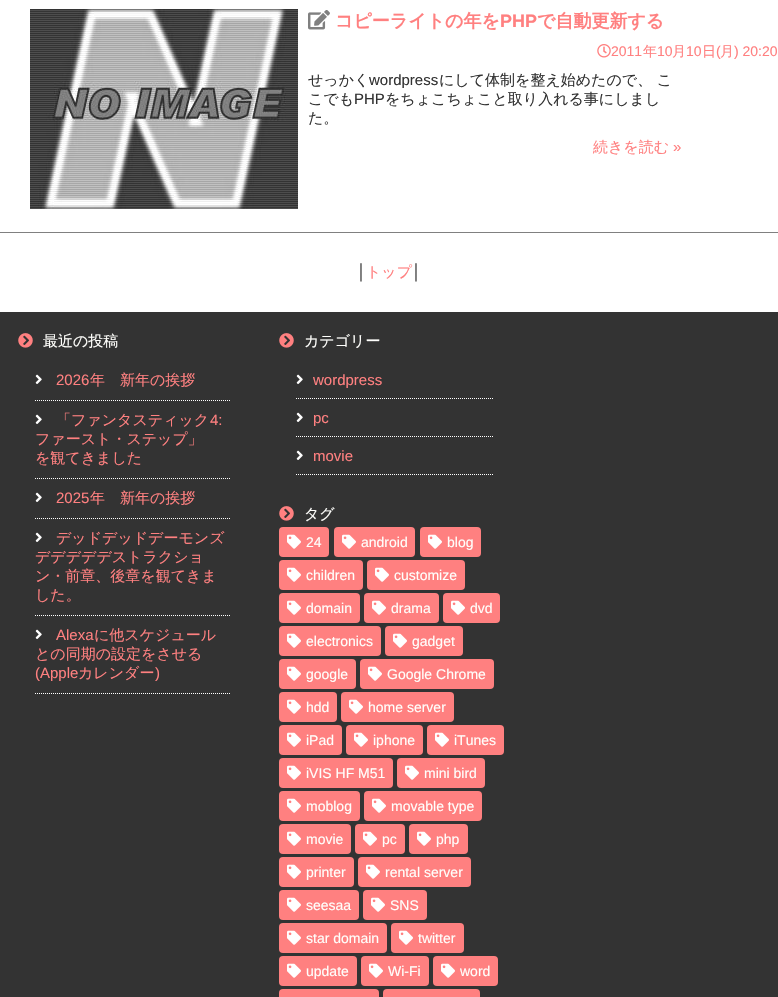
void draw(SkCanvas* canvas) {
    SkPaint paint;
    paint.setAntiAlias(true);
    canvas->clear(0xFFFFFFFF);
    paint.setColor(0xFF808080);
    canvas->drawRect(SkRect::MakeXYWH(0, 232, 778, 1), paint);
    canvas->drawImageRect(SkImages::DeferredFromEncodedData(SkData::MakeFromFileName("img1.png")), SkRect::MakeXYWH(30, 9, 268, 200), SkSamplingOptions());
    canvas->drawImageRect(SkImages::DeferredFromEncodedData(SkData::MakeFromFileName("img2.png")), SkRect::MakeXYWH(308, 10, 22, 20), SkSamplingOptions());
    SkFont font1(fontMgr->matchFamilyStyle("WenQuanYi Zen Hei", SkFontStyle::Bold()), 18);
    font1.setSubpixel(true);
    paint.setColor(0xFFFF8080);
    canvas->drawString("コピーライトの年を", 335, 27, font1, paint);
    SkFont font2(fontMgr->matchFamilyStyle("Liberation Sans", SkFontStyle::Bold()), 18);
    font2.setSubpixel(true);
    canvas->drawString("PHP", 500, 27, font2, paint);
    canvas->drawString("で自動更新する", 537, 27, font1, paint);
    canvas->drawImageRect(SkImages::DeferredFromEncodedData(SkData::MakeFromFileName("img3.png")), SkRect::MakeXYWH(597, 44, 14, 14), SkSamplingOptions());
    SkFont font3(fontMgr->matchFamilyStyle("Liberation Sans", SkFontStyle::Normal()), 14);
    font3.setSubpixel(true);
    canvas->drawString("2011", 611, 56, font3, paint);
    SkFont font4(fontMgr->matchFamilyStyle("WenQuanYi Zen Hei", SkFontStyle(500, SkFontStyle::kNormal_Width, SkFontStyle::kUpright_Slant)), 14);
    font4.setSubpixel(true);
    canvas->drawString("年", 643, 56, font4, paint);
    canvas->drawString("10", 657, 56, font3, paint);
    canvas->drawString("月", 672, 56, font4, paint);
    canvas->drawString("10", 686, 56, font3, paint);
    canvas->drawString("日", 702, 56, font4, paint);
    canvas->drawString("(", 716, 56, font3, paint);
    canvas->drawString("月", 720, 56, font4, paint);
    canvas->drawString(") 20:20", 734, 56, font3, paint);
    SkFont font5(fontMgr->matchFamilyStyle("WenQuanYi Zen Hei", SkFontStyle(500, SkFontStyle::kNormal_Width, SkFontStyle::kUpright_Slant)), 15);
    font5.setSubpixel(true);
    paint.setColor(0xFF333333);
    canvas->drawString("せっかく", 308, 85, font5, paint);
    SkFont font6(fontMgr->matchFamilyStyle("Liberation Sans", SkFontStyle::Normal()), 15);
    font6.setSubpixel(true);
    canvas->drawString("wordpress", 369, 85, font6, paint);
    canvas->drawString("にして体制を整え始めたので、 こ", 439, 85, font5, paint);
    canvas->drawString("こでも", 308, 104, font5, paint);
    canvas->drawString("PHP", 354, 104, font6, paint);
    canvas->drawString("をちょこちょこと取り入れる事にしまし", 385, 104, font5, paint);
    canvas->drawString("た。", 308, 123, font5, paint);
    paint.setColor(0xFFFF8080);
    canvas->drawString("続きを読む", 593, 152, font5, paint);
    canvas->drawString("»", 673, 152, font6, paint);
    paint.setColor(0xFF333333);
    canvas->drawString("│", 357, 277, font6, paint);
    paint.setColor(0xFFFF8080);
    canvas->drawString("トップ", 366, 277, font5, paint);
    paint.setColor(0xFF333333);
    canvas->drawString("│", 412, 277, font6, paint);
    canvas->drawRect(SkRect::MakeXYWH(0, 312, 778, 685), paint);
    canvas->drawImageRect(SkImages::DeferredFromEncodedData(SkData::MakeFromFileName("img4.png")), SkRect::MakeXYWH(18, 333, 15, 15), SkSamplingOptions());
    paint.setColor(0xFFFFFFFC);
    canvas->drawString("最近の投稿", 43, 346, font5, paint);
    paint.setStyle(SkPaint::kStroke_Style);
    paint.setStrokeWidth(1);
    paint.setColor(0xFFFFFFFF);
    paint.setPathEffect(SkDashPathEffect::Make({{1, 1}}, 0));
    canvas->drawPath(SkPathBuilder().moveTo(35, 400.5f).lineTo(231, 400.5f).detach(), paint);
    paint.setPathEffect(nullptr);
    canvas->drawImageRect(SkImages::DeferredFromEncodedData(SkData::MakeFromFileName("img5.png")), SkRect::MakeXYWH(35, 374, 7, 10), SkSamplingOptions());
    paint.setStyle(SkPaint::kFill_Style);
    paint.setColor(0xFFFF8080);
    canvas->drawString("2026", 56, 385, font6, paint);
    canvas->drawString("年　新年の挨拶", 90, 385, font5, paint);
    paint.setStyle(SkPaint::kStroke_Style);
    paint.setColor(0xFFFFFFFF);
    paint.setPathEffect(SkDashPathEffect::Make({{1, 1}}, 0));
    canvas->drawPath(SkPathBuilder().moveTo(35, 478.5f).lineTo(231, 478.5f).detach(), paint);
    paint.setPathEffect(nullptr);
    canvas->drawImageRect(SkImages::DeferredFromEncodedData(SkData::MakeFromFileName("img5.png")), SkRect::MakeXYWH(35, 414, 7, 10), SkSamplingOptions());
    paint.setStyle(SkPaint::kFill_Style);
    paint.setColor(0xFFFF8080);
    canvas->drawString("「ファンタスティック", 56, 425, font5, paint);
    canvas->drawString("4:", 210, 425, font6, paint);
    canvas->drawString("ファースト・ステップ」", 35, 444, font5, paint);
    canvas->drawString("を観てきました", 35, 463, font5, paint);
    paint.setStyle(SkPaint::kStroke_Style);
    paint.setColor(0xFFFFFFFF);
    paint.setPathEffect(SkDashPathEffect::Make({{1, 1}}, 0));
    canvas->drawPath(SkPathBuilder().moveTo(35, 518.5f).lineTo(231, 518.5f).detach(), paint);
    paint.setPathEffect(nullptr);
    canvas->drawImageRect(SkImages::DeferredFromEncodedData(SkData::MakeFromFileName("img5.png")), SkRect::MakeXYWH(35, 492, 7, 10), SkSamplingOptions());
    paint.setStyle(SkPaint::kFill_Style);
    paint.setColor(0xFFFF8080);
    canvas->drawString("2025", 56, 503, font6, paint);
    canvas->drawString("年　新年の挨拶", 90, 503, font5, paint);
    paint.setStyle(SkPaint::kStroke_Style);
    paint.setColor(0xFFFFFFFF);
    paint.setPathEffect(SkDashPathEffect::Make({{1, 1}}, 0));
    canvas->drawPath(SkPathBuilder().moveTo(35, 615.5f).lineTo(231, 615.5f).detach(), paint);
    paint.setPathEffect(nullptr);
    canvas->drawImageRect(SkImages::DeferredFromEncodedData(SkData::MakeFromFileName("img5.png")), SkRect::MakeXYWH(35, 532, 7, 10), SkSamplingOptions());
    paint.setStyle(SkPaint::kFill_Style);
    paint.setColor(0xFFFF8080);
    canvas->drawString("デッドデッドデーモンズ", 56, 543, font5, paint);
    canvas->drawString("デデデデデストラクショ", 35, 562, font5, paint);
    canvas->drawString("ン・前章、後章を観てきま", 35, 581, font5, paint);
    canvas->drawString("した。", 35, 600, font5, paint);
    paint.setStyle(SkPaint::kStroke_Style);
    paint.setColor(0xFFFFFFFF);
    paint.setPathEffect(SkDashPathEffect::Make({{1, 1}}, 0));
    canvas->drawPath(SkPathBuilder().moveTo(35, 693.5f).lineTo(231, 693.5f).detach(), paint);
    paint.setPathEffect(nullptr);
    canvas->drawImageRect(SkImages::DeferredFromEncodedData(SkData::MakeFromFileName("img5.png")), SkRect::MakeXYWH(35, 629, 7, 10), SkSamplingOptions());
    paint.setStyle(SkPaint::kFill_Style);
    paint.setColor(0xFFFF8080);
    canvas->drawString("Alexa", 56, 640, font6, paint);
    canvas->drawString("に他スケジュール", 94, 640, font5, paint);
    canvas->drawString("との同期の設定をさせる", 35, 659, font5, paint);
    canvas->drawString("(Apple", 35, 678, font6, paint);
    canvas->drawString("カレンダー", 78, 678, font5, paint);
    canvas->drawString(")", 155, 678, font6, paint);
    canvas->drawImageRect(SkImages::DeferredFromEncodedData(SkData::MakeFromFileName("img4.png")), SkRect::MakeXYWH(279, 333, 15, 15), SkSamplingOptions());
    paint.setColor(0xFFFFFFFC);
    canvas->drawString("カテゴリー", 304, 346, font5, paint);
    paint.setStyle(SkPaint::kStroke_Style);
    paint.setColor(0xFFFFFFFF);
    paint.setPathEffect(SkDashPathEffect::Make({{1, 1}}, 0));
    canvas->drawPath(SkPathBuilder().moveTo(296, 398.5f).lineTo(493, 398.5f).detach(), paint);
    paint.setPathEffect(nullptr);
    canvas->drawImageRect(SkImages::DeferredFromEncodedData(SkData::MakeFromFileName("img5.png")), SkRect::MakeXYWH(296, 374, 7, 10), SkSamplingOptions());
    paint.setStyle(SkPaint::kFill_Style);
    paint.setColor(0xFFFF8080);
    canvas->drawString("wordpress", 313, 385, font6, paint);
    paint.setStyle(SkPaint::kStroke_Style);
    paint.setColor(0xFFFFFFFF);
    paint.setPathEffect(SkDashPathEffect::Make({{1, 1}}, 0));
    canvas->drawPath(SkPathBuilder().moveTo(296, 436.5f).lineTo(493, 436.5f).detach(), paint);
    paint.setPathEffect(nullptr);
    canvas->drawImageRect(SkImages::DeferredFromEncodedData(SkData::MakeFromFileName("img5.png")), SkRect::MakeXYWH(296, 412, 7, 10), SkSamplingOptions());
    paint.setStyle(SkPaint::kFill_Style);
    paint.setColor(0xFFFF8080);
    canvas->drawString("pc", 313, 423, font6, paint);
    paint.setStyle(SkPaint::kStroke_Style);
    paint.setColor(0xFFFFFFFF);
    paint.setPathEffect(SkDashPathEffect::Make({{1, 1}}, 0));
    canvas->drawPath(SkPathBuilder().moveTo(296, 474.5f).lineTo(493, 474.5f).detach(), paint);
    paint.setPathEffect(nullptr);
    canvas->drawImageRect(SkImages::DeferredFromEncodedData(SkData::MakeFromFileName("img5.png")), SkRect::MakeXYWH(296, 450, 7, 10), SkSamplingOptions());
    paint.setStyle(SkPaint::kFill_Style);
    paint.setColor(0xFFFF8080);
    canvas->drawString("movie", 313, 461, font6, paint);
    canvas->drawImageRect(SkImages::DeferredFromEncodedData(SkData::MakeFromFileName("img4.png")), SkRect::MakeXYWH(279, 506, 15, 15), SkSamplingOptions());
    paint.setColor(0xFFFFFFFC);
    canvas->drawString("タグ", 304, 519, font5, paint);
    paint.setColor(0xFFFF8080);
    canvas->drawRoundRect(SkRect::MakeXYWH(279, 527, 50, 30), 4, 4, paint);
    canvas->drawImageRect(SkImages::DeferredFromEncodedData(SkData::MakeFromFileName("img6.png")), SkRect::MakeXYWH(287, 534, 14, 15), SkSamplingOptions());
    paint.setColor(0xFFFFFFFC);
    canvas->drawString("24", 306, 547, font3, paint);
    paint.setColor(0xFFFF8080);
    canvas->drawRoundRect(SkRect::MakeXYWH(334, 527, 81, 30), 4, 4, paint);
    canvas->drawImageRect(SkImages::DeferredFromEncodedData(SkData::MakeFromFileName("img6.png")), SkRect::MakeXYWH(342, 534, 14, 15), SkSamplingOptions());
    paint.setColor(0xFFFFFFFC);
    canvas->drawString("android", 361, 547, font3, paint);
    paint.setColor(0xFFFF8080);
    canvas->drawRoundRect(SkRect::MakeXYWH(420, 527, 61, 30), 4, 4, paint);
    canvas->drawImageRect(SkImages::DeferredFromEncodedData(SkData::MakeFromFileName("img6.png")), SkRect::MakeXYWH(428, 534, 14, 15), SkSamplingOptions());
    paint.setColor(0xFFFFFFFC);
    canvas->drawString("blog", 447, 547, font3, paint);
    paint.setColor(0xFFFF8080);
    canvas->drawRoundRect(SkRect::MakeXYWH(279, 560, 84, 30), 4, 4, paint);
    canvas->drawImageRect(SkImages::DeferredFromEncodedData(SkData::MakeFromFileName("img6.png")), SkRect::MakeXYWH(287, 567, 14, 15), SkSamplingOptions());
    paint.setColor(0xFFFFFFFC);
    canvas->drawString("children", 306, 580, font3, paint);
    paint.setColor(0xFFFF8080);
    canvas->drawRoundRect(SkRect::MakeXYWH(367, 560, 98, 30), 4, 4, paint);
    canvas->drawImageRect(SkImages::DeferredFromEncodedData(SkData::MakeFromFileName("img6.png")), SkRect::MakeXYWH(375, 567, 14, 15), SkSamplingOptions());
    paint.setColor(0xFFFFFFFC);
    canvas->drawString("customize", 394, 580, font3, paint);
    paint.setColor(0xFFFF8080);
    canvas->drawRoundRect(SkRect::MakeXYWH(279, 593, 81, 30), 4, 4, paint);
    canvas->drawImageRect(SkImages::DeferredFromEncodedData(SkData::MakeFromFileName("img6.png")), SkRect::MakeXYWH(287, 600, 14, 15), SkSamplingOptions());
    paint.setColor(0xFFFFFFFC);
    canvas->drawString("domain", 306, 613, font3, paint);
    paint.setColor(0xFFFF8080);
    canvas->drawRoundRect(SkRect::MakeXYWH(364, 593, 75, 30), 4, 4, paint);
    canvas->drawImageRect(SkImages::DeferredFromEncodedData(SkData::MakeFromFileName("img6.png")), SkRect::MakeXYWH(372, 600, 14, 15), SkSamplingOptions());
    paint.setColor(0xFFFFFFFC);
    canvas->drawString("drama", 391, 613, font3, paint);
    paint.setColor(0xFFFF8080);
    canvas->drawRoundRect(SkRect::MakeXYWH(443, 593, 57, 30), 4, 4, paint);
    canvas->drawImageRect(SkImages::DeferredFromEncodedData(SkData::MakeFromFileName("img6.png")), SkRect::MakeXYWH(451, 600, 14, 15), SkSamplingOptions());
    paint.setColor(0xFFFFFFFC);
    canvas->drawString("dvd", 470, 613, font3, paint);
    paint.setColor(0xFFFF8080);
    canvas->drawRoundRect(SkRect::MakeXYWH(279, 626, 102, 30), 4, 4, paint);
    canvas->drawImageRect(SkImages::DeferredFromEncodedData(SkData::MakeFromFileName("img6.png")), SkRect::MakeXYWH(287, 633, 14, 15), SkSamplingOptions());
    paint.setColor(0xFFFFFFFC);
    canvas->drawString("electronics", 306, 646, font3, paint);
    paint.setColor(0xFFFF8080);
    canvas->drawRoundRect(SkRect::MakeXYWH(385, 626, 78, 30), 4, 4, paint);
    canvas->drawImageRect(SkImages::DeferredFromEncodedData(SkData::MakeFromFileName("img6.png")), SkRect::MakeXYWH(393, 633, 14, 15), SkSamplingOptions());
    paint.setColor(0xFFFFFFFC);
    canvas->drawString("gadget", 412, 646, font3, paint);
    paint.setColor(0xFFFF8080);
    canvas->drawRoundRect(SkRect::MakeXYWH(279, 659, 77, 30), 4, 4, paint);
    canvas->drawImageRect(SkImages::DeferredFromEncodedData(SkData::MakeFromFileName("img6.png")), SkRect::MakeXYWH(287, 666, 14, 15), SkSamplingOptions());
    paint.setColor(0xFFFFFFFC);
    canvas->drawString("google", 306, 679, font3, paint);
    paint.setColor(0xFFFF8080);
    canvas->drawRoundRect(SkRect::MakeXYWH(360, 659, 134, 30), 4, 4, paint);
    canvas->drawImageRect(SkImages::DeferredFromEncodedData(SkData::MakeFromFileName("img6.png")), SkRect::MakeXYWH(368, 666, 14, 15), SkSamplingOptions());
    paint.setColor(0xFFFFFFFC);
    canvas->drawString("Google Chrome", 387, 679, font3, paint);
    paint.setColor(0xFFFF8080);
    canvas->drawRoundRect(SkRect::MakeXYWH(279, 692, 58, 30), 4, 4, paint);
    canvas->drawImageRect(SkImages::DeferredFromEncodedData(SkData::MakeFromFileName("img6.png")), SkRect::MakeXYWH(287, 699, 14, 15), SkSamplingOptions());
    paint.setColor(0xFFFFFFFC);
    canvas->drawString("hdd", 306, 712, font3, paint);
    paint.setColor(0xFFFF8080);
    canvas->drawRoundRect(SkRect::MakeXYWH(341, 692, 113, 30), 4, 4, paint);
    canvas->drawImageRect(SkImages::DeferredFromEncodedData(SkData::MakeFromFileName("img6.png")), SkRect::MakeXYWH(349, 699, 14, 15), SkSamplingOptions());
    paint.setColor(0xFFFFFFFC);
    canvas->drawString("home server", 368, 712, font3, paint);
    paint.setColor(0xFFFF8080);
    canvas->drawRoundRect(SkRect::MakeXYWH(279, 725, 63, 30), 4, 4, paint);
    canvas->drawImageRect(SkImages::DeferredFromEncodedData(SkData::MakeFromFileName("img6.png")), SkRect::MakeXYWH(287, 732, 14, 15), SkSamplingOptions());
    paint.setColor(0xFFFFFFFC);
    canvas->drawString("iPad", 306, 745, font3, paint);
    paint.setColor(0xFFFF8080);
    canvas->drawRoundRect(SkRect::MakeXYWH(346, 725, 77, 30), 4, 4, paint);
    canvas->drawImageRect(SkImages::DeferredFromEncodedData(SkData::MakeFromFileName("img6.png")), SkRect::MakeXYWH(354, 732, 14, 15), SkSamplingOptions());
    paint.setColor(0xFFFFFFFC);
    canvas->drawString("iphone", 373, 745, font3, paint);
    paint.setColor(0xFFFF8080);
    canvas->drawRoundRect(SkRect::MakeXYWH(427, 725, 77, 30), 4, 4, paint);
    canvas->drawImageRect(SkImages::DeferredFromEncodedData(SkData::MakeFromFileName("img6.png")), SkRect::MakeXYWH(435, 732, 14, 15), SkSamplingOptions());
    paint.setColor(0xFFFFFFFC);
    canvas->drawString("iTunes", 454, 745, font3, paint);
    paint.setColor(0xFFFF8080);
    canvas->drawRoundRect(SkRect::MakeXYWH(279, 758, 114, 30), 4, 4, paint);
    canvas->drawImageRect(SkImages::DeferredFromEncodedData(SkData::MakeFromFileName("img6.png")), SkRect::MakeXYWH(287, 765, 14, 15), SkSamplingOptions());
    paint.setColor(0xFFFFFFFC);
    canvas->drawString("iVIS HF M51", 306, 778, font3, paint);
    paint.setColor(0xFFFF8080);
    canvas->drawRoundRect(SkRect::MakeXYWH(397, 758, 88, 30), 4, 4, paint);
    canvas->drawImageRect(SkImages::DeferredFromEncodedData(SkData::MakeFromFileName("img6.png")), SkRect::MakeXYWH(405, 765, 14, 15), SkSamplingOptions());
    paint.setColor(0xFFFFFFFC);
    canvas->drawString("mini bird", 424, 778, font3, paint);
    paint.setColor(0xFFFF8080);
    canvas->drawRoundRect(SkRect::MakeXYWH(279, 791, 81, 30), 4, 4, paint);
    canvas->drawImageRect(SkImages::DeferredFromEncodedData(SkData::MakeFromFileName("img6.png")), SkRect::MakeXYWH(287, 798, 14, 15), SkSamplingOptions());
    paint.setColor(0xFFFFFFFC);
    canvas->drawString("moblog", 306, 811, font3, paint);
    paint.setColor(0xFFFF8080);
    canvas->drawRoundRect(SkRect::MakeXYWH(364, 791, 118, 30), 4, 4, paint);
    canvas->drawImageRect(SkImages::DeferredFromEncodedData(SkData::MakeFromFileName("img6.png")), SkRect::MakeXYWH(372, 798, 14, 15), SkSamplingOptions());
    paint.setColor(0xFFFFFFFC);
    canvas->drawString("movable type", 391, 811, font3, paint);
    paint.setColor(0xFFFF8080);
    canvas->drawRoundRect(SkRect::MakeXYWH(279, 824, 72, 30), 4, 4, paint);
    canvas->drawImageRect(SkImages::DeferredFromEncodedData(SkData::MakeFromFileName("img6.png")), SkRect::MakeXYWH(287, 831, 14, 15), SkSamplingOptions());
    paint.setColor(0xFFFFFFFC);
    canvas->drawString("movie", 306, 844, font3, paint);
    paint.setColor(0xFFFF8080);
    canvas->drawRoundRect(SkRect::MakeXYWH(355, 824, 50, 30), 4, 4, paint);
    canvas->drawImageRect(SkImages::DeferredFromEncodedData(SkData::MakeFromFileName("img6.png")), SkRect::MakeXYWH(363, 831, 14, 15), SkSamplingOptions());
    paint.setColor(0xFFFFFFFC);
    canvas->drawString("pc", 382, 844, font3, paint);
    paint.setColor(0xFFFF8080);
    canvas->drawRoundRect(SkRect::MakeXYWH(409, 824, 59, 30), 4, 4, paint);
    canvas->drawImageRect(SkImages::DeferredFromEncodedData(SkData::MakeFromFileName("img6.png")), SkRect::MakeXYWH(417, 831, 14, 15), SkSamplingOptions());
    paint.setColor(0xFFFFFFFC);
    canvas->drawString("php", 436, 844, font3, paint);
    paint.setColor(0xFFFF8080);
    canvas->drawRoundRect(SkRect::MakeXYWH(279, 857, 75, 30), 4, 4, paint);
    canvas->drawImageRect(SkImages::DeferredFromEncodedData(SkData::MakeFromFileName("img6.png")), SkRect::MakeXYWH(287, 864, 14, 15), SkSamplingOptions());
    paint.setColor(0xFFFFFFFC);
    canvas->drawString("printer", 306, 877, font3, paint);
    paint.setColor(0xFFFF8080);
    canvas->drawRoundRect(SkRect::MakeXYWH(358, 857, 113, 30), 4, 4, paint);
    canvas->drawImageRect(SkImages::DeferredFromEncodedData(SkData::MakeFromFileName("img6.png")), SkRect::MakeXYWH(366, 864, 14, 15), SkSamplingOptions());
    paint.setColor(0xFFFFFFFC);
    canvas->drawString("rental server", 385, 877, font3, paint);
    paint.setColor(0xFFFF8080);
    canvas->drawRoundRect(SkRect::MakeXYWH(279, 890, 80, 30), 4, 4, paint);
    canvas->drawImageRect(SkImages::DeferredFromEncodedData(SkData::MakeFromFileName("img6.png")), SkRect::MakeXYWH(287, 897, 14, 15), SkSamplingOptions());
    paint.setColor(0xFFFFFFFC);
    canvas->drawString("seesaa", 306, 910, font3, paint);
    paint.setColor(0xFFFF8080);
    canvas->drawRoundRect(SkRect::MakeXYWH(363, 890, 64, 30), 4, 4, paint);
    canvas->drawImageRect(SkImages::DeferredFromEncodedData(SkData::MakeFromFileName("img6.png")), SkRect::MakeXYWH(371, 897, 14, 15), SkSamplingOptions());
    paint.setColor(0xFFFFFFFC);
    canvas->drawString("SNS", 390, 910, font3, paint);
    paint.setColor(0xFFFF8080);
    canvas->drawRoundRect(SkRect::MakeXYWH(279, 923, 108, 30), 4, 4, paint);
    canvas->drawImageRect(SkImages::DeferredFromEncodedData(SkData::MakeFromFileName("img6.png")), SkRect::MakeXYWH(287, 930, 14, 15), SkSamplingOptions());
    paint.setColor(0xFFFFFFFC);
    canvas->drawString("star domain", 306, 943, font3, paint);
    paint.setColor(0xFFFF8080);
    canvas->drawRoundRect(SkRect::MakeXYWH(391, 923, 73, 30), 4, 4, paint);
    canvas->drawImageRect(SkImages::DeferredFromEncodedData(SkData::MakeFromFileName("img6.png")), SkRect::MakeXYWH(399, 930, 14, 15), SkSamplingOptions());
    paint.setColor(0xFFFFFFFC);
    canvas->drawString("twitter", 418, 943, font3, paint);
    paint.setColor(0xFFFF8080);
    canvas->drawRoundRect(SkRect::MakeXYWH(279, 956, 78, 30), 4, 4, paint);
    canvas->drawImageRect(SkImages::DeferredFromEncodedData(SkData::MakeFromFileName("img6.png")), SkRect::MakeXYWH(287, 963, 14, 15), SkSamplingOptions());
    paint.setColor(0xFFFFFFFC);
    canvas->drawString("update", 306, 976, font3, paint);
    paint.setColor(0xFFFF8080);
    canvas->drawRoundRect(SkRect::MakeXYWH(361, 956, 68, 30), 4, 4, paint);
    canvas->drawImageRect(SkImages::DeferredFromEncodedData(SkData::MakeFromFileName("img6.png")), SkRect::MakeXYWH(369, 963, 14, 15), SkSamplingOptions());
    paint.setColor(0xFFFFFFFC);
    canvas->drawString("Wi-Fi", 388, 976, font3, paint);
    paint.setColor(0xFFFF8080);
    canvas->drawRoundRect(SkRect::MakeXYWH(433, 956, 65, 30), 4, 4, paint);
    canvas->drawImageRect(SkImages::DeferredFromEncodedData(SkData::MakeFromFileName("img6.png")), SkRect::MakeXYWH(441, 963, 14, 15), SkSamplingOptions());
    paint.setColor(0xFFFFFFFC);
    canvas->drawString("word", 460, 976, font3, paint);
    paint.setColor(0xFFFF8080);
    canvas->drawRoundRect(SkRect::MakeXYWH(279, 989, 100, 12), 4, 4, paint);
    canvas->drawRoundRect(SkRect::MakeXYWH(383, 989, 97, 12), 4, 4, paint);
}
